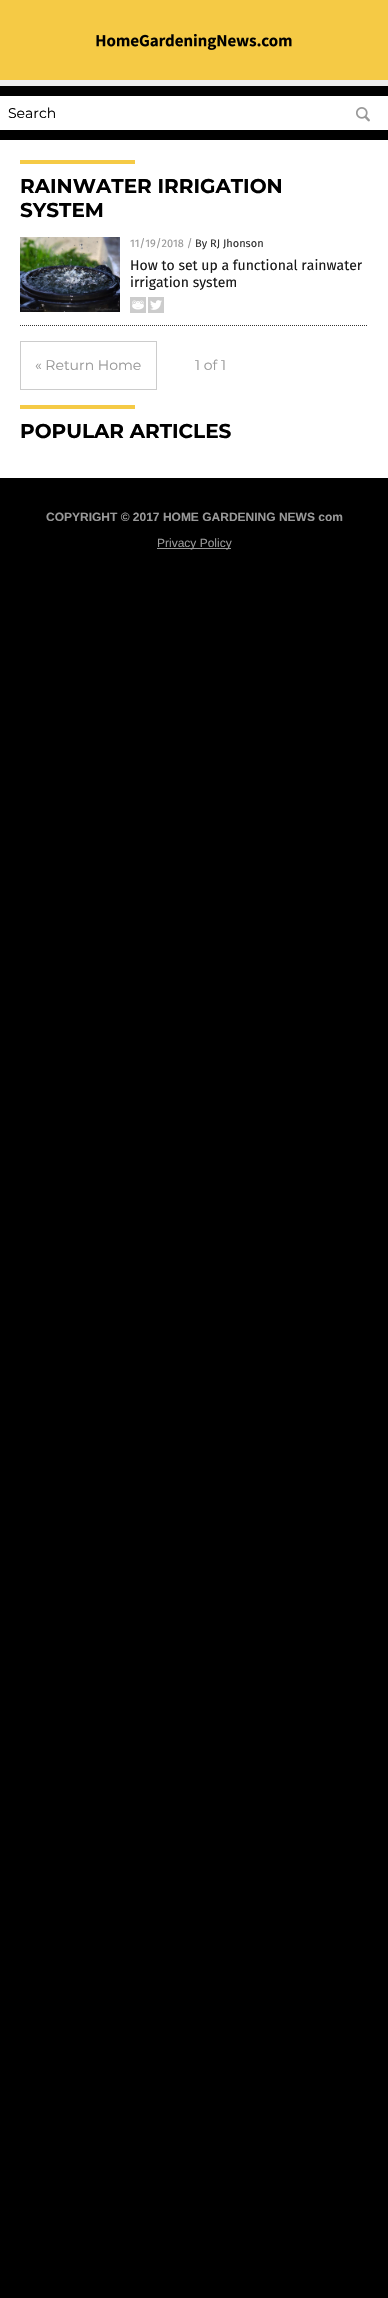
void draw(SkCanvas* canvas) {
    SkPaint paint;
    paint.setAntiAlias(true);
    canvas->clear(0xFF000000);
    paint.setColor(0xFFF5CA45);
    canvas->drawRect(SkRect::MakeXYWH(0, 0, 388, 80), paint);
    canvas->drawImageRect(SkImages::DeferredFromEncodedData(SkData::MakeFromFileName("img1.png")), SkRect::MakeXYWH(96, 34, 196, 16), SkSamplingOptions());
    paint.setColor(0xFFECECEC);
    canvas->drawRect(SkRect::MakeXYWH(0, 80, 388, 6), paint);
    paint.setColor(0xFFFFFFFF);
    canvas->drawRect(SkRect::MakeXYWH(0, 96, 388, 34), paint);
    SkFont font1(fontMgr->matchFamilyStyle("Montserrat", SkFontStyle::Normal()), 14);
    font1.setSubpixel(true);
    paint.setColor(0xFF000000);
    canvas->drawString("Search", 8, 118, font1, paint);
    canvas->drawImageRect(SkImages::DeferredFromEncodedData(SkData::MakeFromFileName("img2.png")), SkRect::MakeXYWH(356, 107, 14, 15), SkSamplingOptions());
    paint.setColor(0xFFFFFFFF);
    canvas->drawRect(SkRect::MakeXYWH(0, 140, 388, 338), paint);
    paint.setColor(0xFFF5CA45);
    canvas->drawRect(SkRect::MakeXYWH(20, 160, 115, 4), paint);
    SkFont font2(fontMgr->matchFamilyStyle("Montserrat", SkFontStyle::Bold()), 20);
    font2.setSubpixel(true);
    paint.setColor(0xFF000000);
    canvas->drawString("RAINWATER IRRIGATION", 20, 193, font2, paint);
    canvas->drawString("SYSTEM", 20, 217, font2, paint);
    paint.setStyle(SkPaint::kStroke_Style);
    paint.setStrokeWidth(1);
    paint.setColor(0xFF343434);
    paint.setPathEffect(SkDashPathEffect::Make({{1, 1}}, 0));
    canvas->drawPath(SkPathBuilder().moveTo(20, 325.5f).lineTo(368, 325.5f).detach(), paint);
    paint.setPathEffect(nullptr);
    canvas->drawImageRect(SkImages::DeferredFromEncodedData(SkData::MakeFromFileName("img3.png")), SkRect::MakeXYWH(20, 237, 100, 75), SkSamplingOptions());
    SkFont font3(fontMgr->matchFamilyStyle("Fira Sans", SkFontStyle::Normal()), 11);
    font3.setSubpixel(true);
    paint.setStyle(SkPaint::kFill_Style);
    paint.setColor(0xFF999999);
    canvas->drawString("11/19/2018 /", 130, 247, font3, paint);
    paint.setColor(0xFF333333);
    canvas->drawString("By RJ Jhonson", 195, 247, font3, paint);
    SkFont font4(fontMgr->matchFamilyStyle("Fira Sans", SkFontStyle::Normal()), 14);
    font4.setSubpixel(true);
    paint.setColor(0xFF1A1A1A);
    canvas->drawString("How to set up a functional rainwater", 130, 270, font4, paint);
    canvas->drawString("irrigation system", 130, 287, font4, paint);
    canvas->drawImageRect(SkImages::DeferredFromEncodedData(SkData::MakeFromFileName("img4.png")), SkRect::MakeXYWH(130, 297, 16, 16), SkSamplingOptions());
    canvas->drawImageRect(SkImages::DeferredFromEncodedData(SkData::MakeFromFileName("img5.png")), SkRect::MakeXYWH(148, 297, 16, 16), SkSamplingOptions());
    paint.setStyle(SkPaint::kStroke_Style);
    paint.setColor(0xFFCCCCCC);
    canvas->drawRect(SkRect::MakeXYWH(20.5f, 341.5f, 136, 48), paint);
    paint.setStyle(SkPaint::kFill_Style);
    paint.setColor(0xFF999999);
    canvas->drawString("« Return Home", 35, 370, font1, paint);
    canvas->drawString("1 of 1", 195, 370, font1, paint);
    paint.setColor(0xFFF5CA45);
    canvas->drawRect(SkRect::MakeXYWH(20, 405, 115, 4), paint);
    paint.setColor(0xFF000000);
    canvas->drawString("POPULAR ARTICLES", 20, 438, font2, paint);
    SkFont font5(fontMgr->matchFamilyStyle("Liberation Sans", SkFontStyle::Bold()), 12);
    font5.setSubpixel(true);
    paint.setColor(0xFF999999);
    canvas->drawString("COPYRIGHT © 2017 HOME GARDENING NEWS com", 46, 521, font5, paint);
    canvas->drawRect(SkRect::MakeXYWH(157, 548, 74, 1), paint);
    SkFont font6(fontMgr->matchFamilyStyle("Liberation Sans", SkFontStyle::Normal()), 12);
    font6.setSubpixel(true);
    canvas->drawString("Privacy Policy", 157, 547, font6, paint);
}
